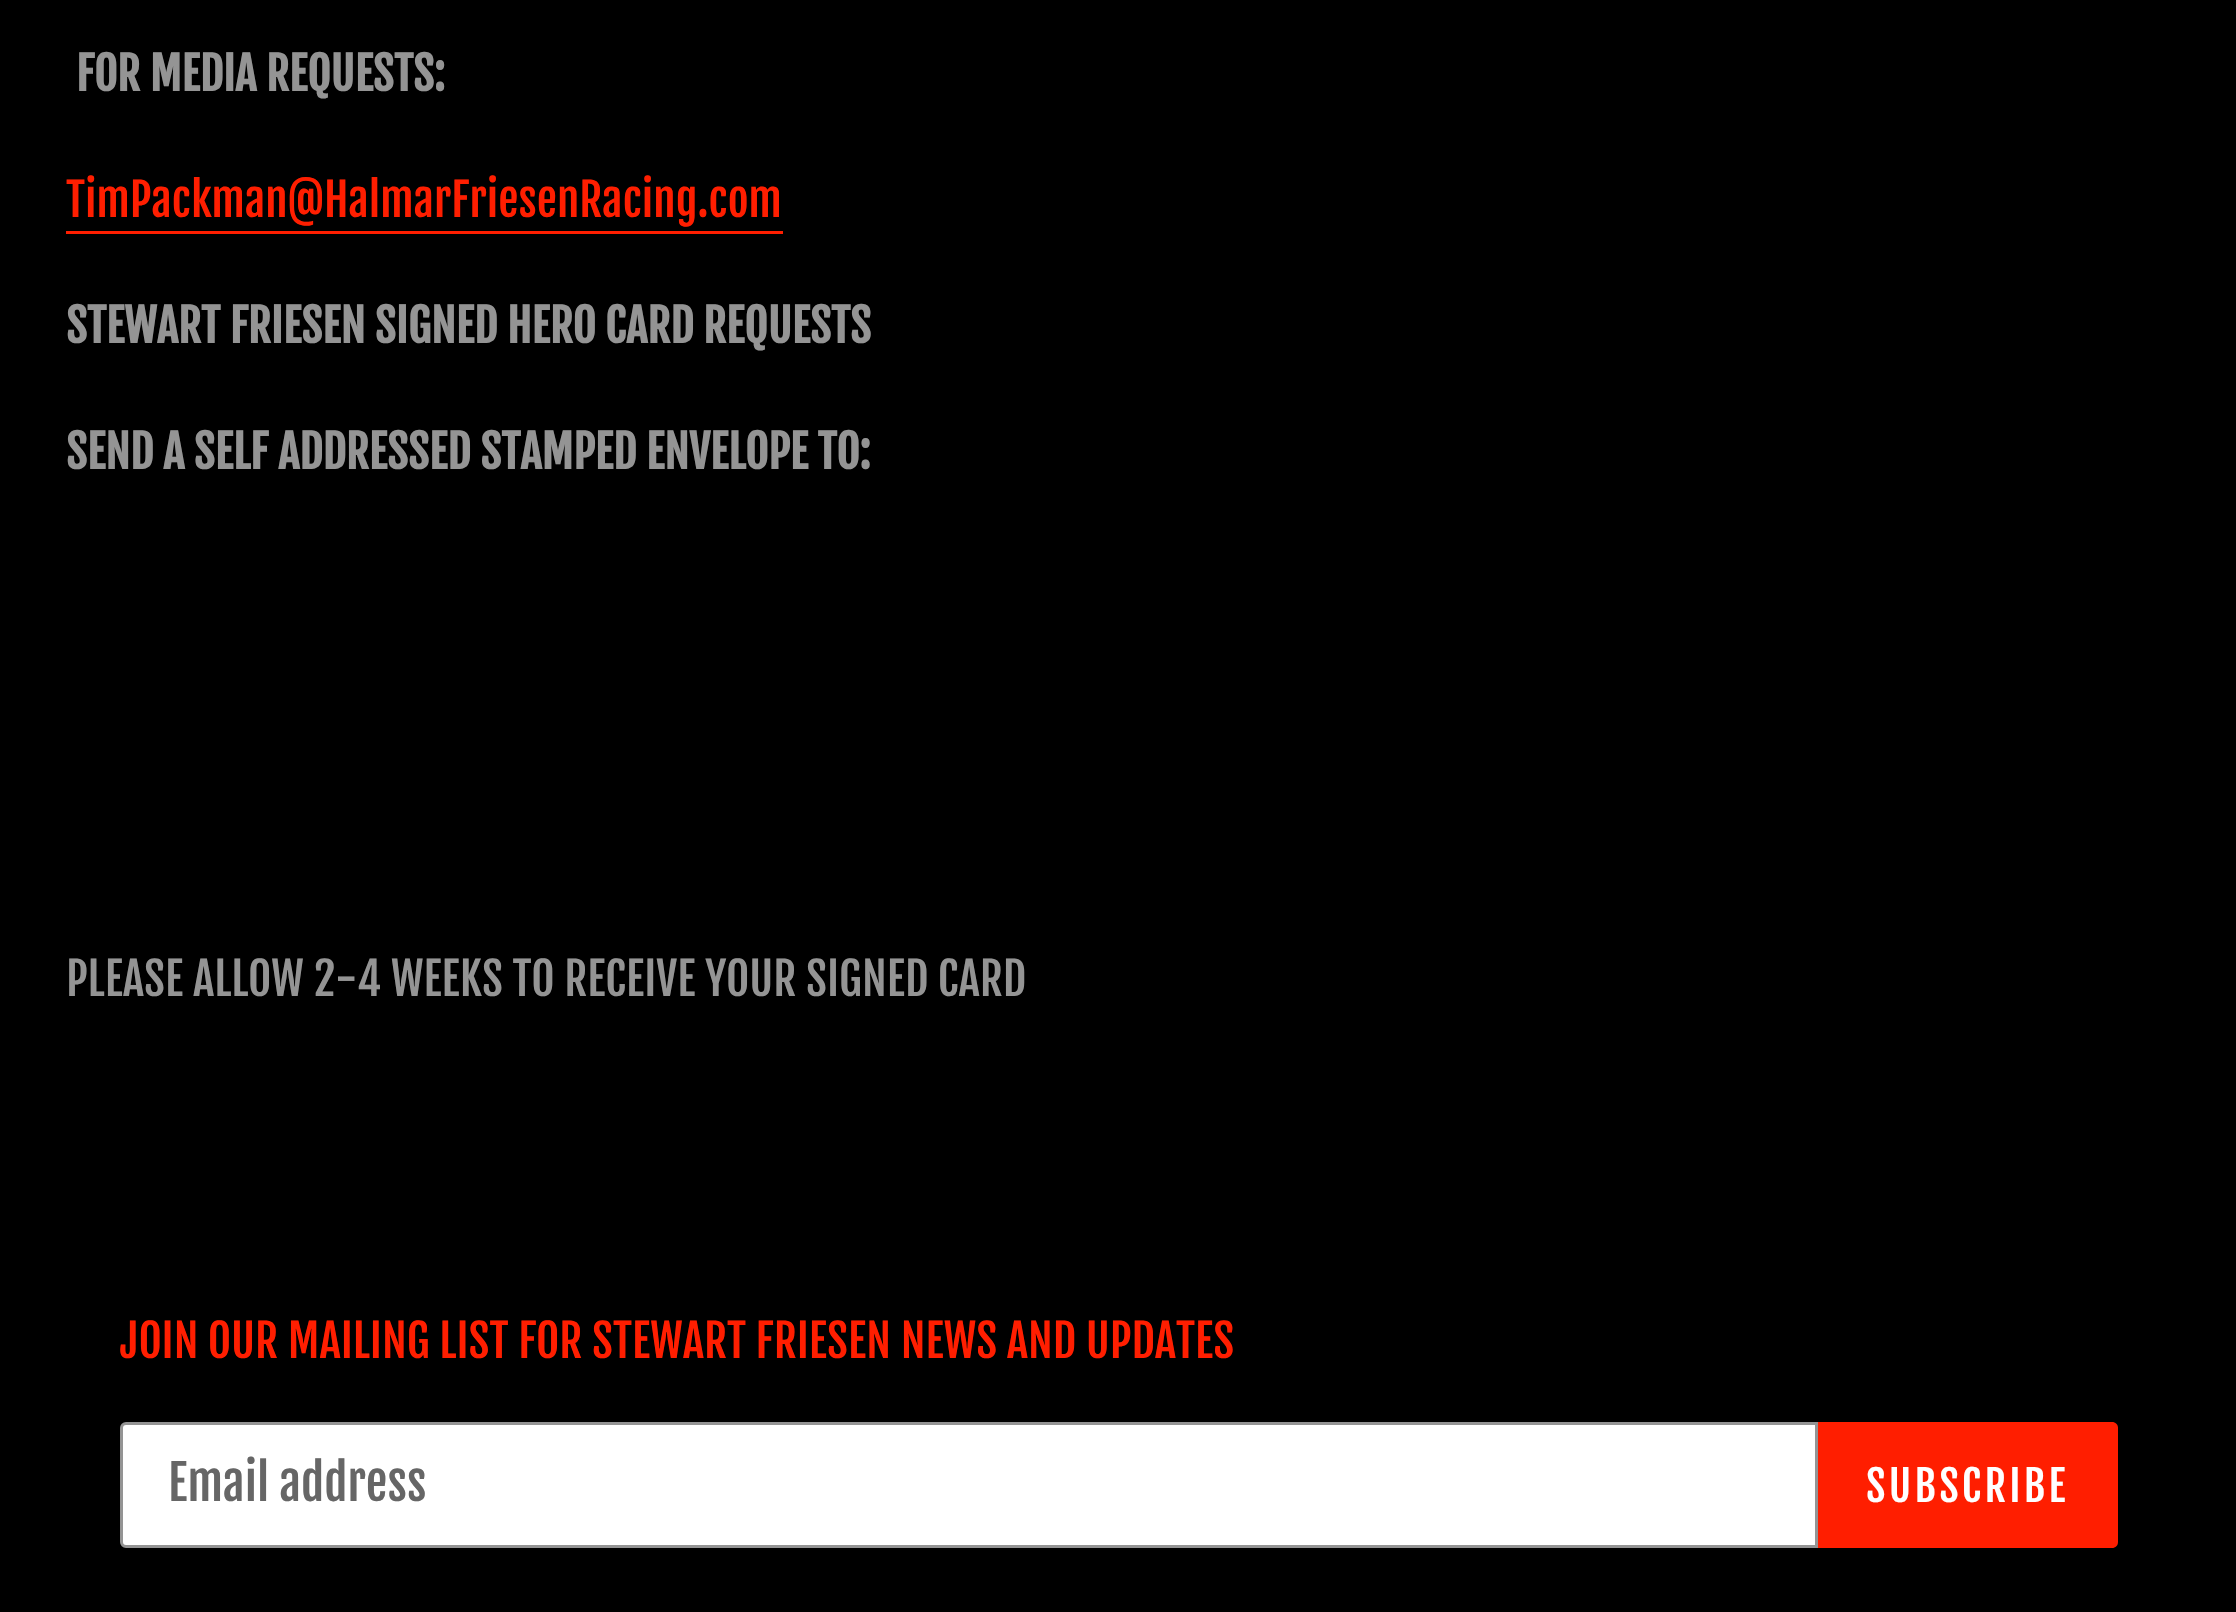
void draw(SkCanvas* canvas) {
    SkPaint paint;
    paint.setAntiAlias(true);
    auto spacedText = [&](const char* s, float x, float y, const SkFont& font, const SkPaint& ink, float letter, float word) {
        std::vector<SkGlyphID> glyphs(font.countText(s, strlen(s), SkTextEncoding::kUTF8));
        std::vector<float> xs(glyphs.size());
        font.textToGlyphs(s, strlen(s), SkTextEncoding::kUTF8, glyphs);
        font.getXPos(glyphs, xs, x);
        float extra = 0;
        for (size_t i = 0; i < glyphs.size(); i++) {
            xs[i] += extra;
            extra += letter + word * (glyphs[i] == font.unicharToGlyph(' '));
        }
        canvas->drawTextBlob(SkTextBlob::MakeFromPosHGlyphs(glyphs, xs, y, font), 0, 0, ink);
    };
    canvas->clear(0xFF000000);
    SkFont font1(fontMgr->matchFamilyStyle("Fjalla One", SkFontStyle::Bold()), 45);
    font1.setSubpixel(true);
    paint.setColor(0xFF949494);
    canvas->drawString("FOR MEDIA REQUESTS:", 76, 91, font1, paint);
    SkFont font2(fontMgr->matchFamilyStyle("Fjalla One", SkFontStyle::Normal()), 45);
    font2.setSubpixel(true);
    paint.setColor(0xFFFF1E00);
    canvas->drawString("TimPackman@HalmarFriesenRacing.com", 66, 217, font2, paint);
    canvas->drawRect(SkRect::MakeXYWH(66, 231, 717, 3), paint);
    paint.setColor(0xFF949494);
    canvas->drawString("STEWART FRIESEN SIGNED HERO CARD REQUESTS", 66, 343, font1, paint);
    canvas->drawString("SEND A SELF ADDRESSED STAMPED ENVELOPE TO:", 66, 469, font1, paint);
    canvas->drawString("PLEASE ALLOW 2-4 WEEKS TO RECEIVE YOUR SIGNED CARD", 66, 996, font2, paint);
    paint.setColor(0xFFFF1E00);
    canvas->drawString("JOIN OUR MAILING LIST FOR STEWART FRIESEN NEWS AND UPDATES", 120, 1358, font2, paint);
    paint.setColor(0xFFFFFFFF);
    canvas->drawPath(SkPathBuilder().moveTo(126, 1423.5f).lineTo(1816.5f, 1423.5f).lineTo(1816.5f, 1546.5f).lineTo(126, 1546.5f).cubicTo(123.5f, 1546.5f, 121.5f, 1544.5f, 121.5f, 1542).lineTo(121.5f, 1428).cubicTo(121.5f, 1425.5f, 123.5f, 1423.5f, 126, 1423.5f).close().detach(), paint);
    paint.setStyle(SkPaint::kStroke_Style);
    paint.setStrokeWidth(3);
    paint.setColor(0xFF949494);
    canvas->drawPath(SkPathBuilder().moveTo(126, 1423.5f).lineTo(1816.5f, 1423.5f).lineTo(1816.5f, 1546.5f).lineTo(126, 1546.5f).cubicTo(123.5f, 1546.5f, 121.5f, 1544.5f, 121.5f, 1542).lineTo(121.5f, 1428).cubicTo(121.5f, 1425.5f, 123.5f, 1423.5f, 126, 1423.5f).close().detach(), paint);
    SkFont font3(fontMgr->matchFamilyStyle("Fjalla One", SkFontStyle::Normal()), 48);
    font3.setSubpixel(true);
    paint.setStyle(SkPaint::kFill_Style);
    paint.setColor(0xFF666666);
    canvas->drawString("Email address", 168, 1501, font3, paint);
    paint.setColor(0xFFFF1E00);
    canvas->drawPath(SkPathBuilder().moveTo(1818, 1422).lineTo(2112, 1422).cubicTo(2115.5f, 1422, 2118, 1424.5f, 2118, 1428).lineTo(2118, 1542).cubicTo(2118, 1545.5f, 2115.5f, 1548, 2112, 1548).lineTo(1818, 1548).close().detach(), paint);
    SkFont font4(fontMgr->matchFamilyStyle("Fjalla One", SkFontStyle::Normal()), 42);
    font4.setSubpixel(true);
    paint.setColor(0xFFFFFFFF);
    spacedText("SUBSCRIBE", 1866, 1502, font4, paint, 3.25f, 0);
}
